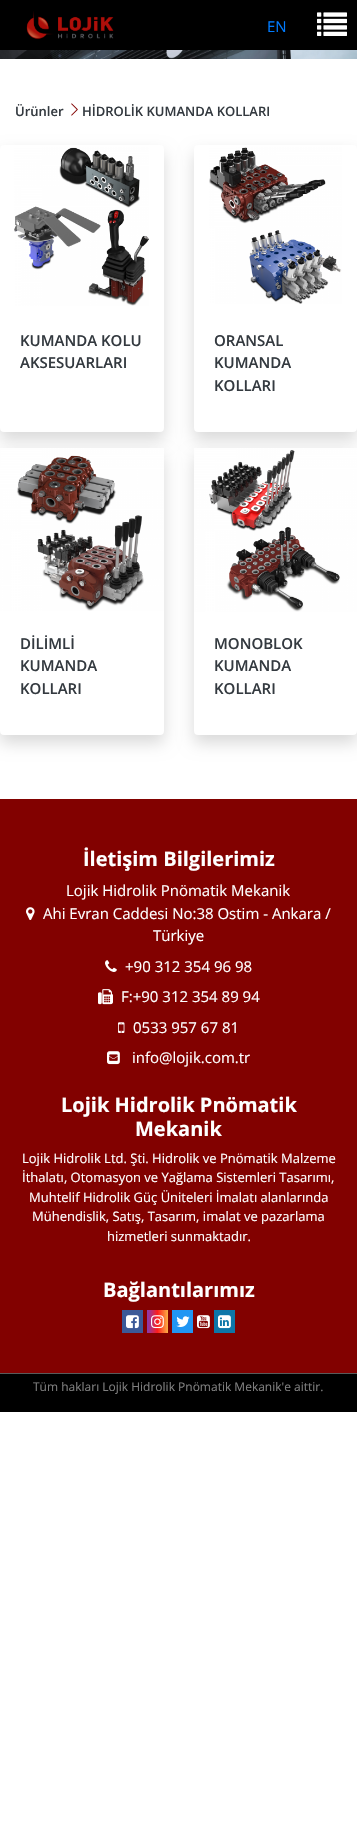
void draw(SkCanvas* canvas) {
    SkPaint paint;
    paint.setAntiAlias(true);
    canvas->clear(0xFFFFFFFF);
    paint.setColor(0xFF000000);
    canvas->drawRect(SkRect::MakeXYWH(0, 0, 357, 50), paint);
    canvas->drawImageRect(SkImages::DeferredFromEncodedData(SkData::MakeFromFileName("img1.png")), SkRect::MakeXYWH(26, 11, 88, 29), SkSamplingOptions());
    SkFont font1(fontMgr->matchFamilyStyle("Open Sans", SkFontStyle::Normal()), 15);
    font1.setSubpixel(true);
    paint.setColor(0xFF007BFF);
    canvas->drawString("EN", 267, 32, font1, paint);
    canvas->drawImageRect(SkImages::DeferredFromEncodedData(SkData::MakeFromFileName("img2.png")), SkRect::MakeXYWH(317, 12, 30, 24), SkSamplingOptions());
    canvas->drawImageRect(SkImages::DeferredFromEncodedData(SkData::MakeFromFileName("img3.png")), SkRect::MakeXYWH(0, 50, 357, 9), SkSamplingOptions());
    SkFont font2(fontMgr->matchFamilyStyle("Open Sans", SkFontStyle(600, SkFontStyle::kNormal_Width, SkFontStyle::kUpright_Slant)), 13);
    font2.setSubpixel(true);
    paint.setColor(0xFF343A40);
    canvas->drawString("Ürünler", 15, 116, font2, paint);
    canvas->drawImageRect(SkImages::DeferredFromEncodedData(SkData::MakeFromFileName("img4.png")), SkRect::MakeXYWH(71, 103, 7, 13), SkSamplingOptions());
    canvas->drawString("HİDROLİK KUMANDA KOLLARI", 82, 116, font2, paint);
    paint.setColor(0x26000000);
    paint.setMaskFilter(SkMaskFilter::MakeBlur(kNormal_SkBlurStyle, 8));
    canvas->drawRoundRect(SkRect::MakeXYWH(0, 153, 164, 287), 4, 4, paint);
    paint.setMaskFilter(nullptr);
    paint.setColor(0xFFFFFFFF);
    canvas->drawRoundRect(SkRect::MakeXYWH(0, 145, 164, 287), 4, 4, paint);
    canvas->drawImageRect(SkImages::DeferredFromEncodedData(SkData::MakeFromFileName("img5.png")), SkRect::MakeXYWH(14, 147, 135, 159), SkSamplingOptions());
    SkFont font3(fontMgr->matchFamilyStyle("Open Sans", SkFontStyle(600, SkFontStyle::kNormal_Width, SkFontStyle::kUpright_Slant)), 15);
    font3.setSubpixel(true);
    paint.setColor(0xFF343A40);
    canvas->drawString("KUMANDA KOLU", 20, 346, font3, paint);
    canvas->drawString("AKSESUARLARI", 20, 368, font3, paint);
    paint.setColor(0x26000000);
    paint.setMaskFilter(SkMaskFilter::MakeBlur(kNormal_SkBlurStyle, 8));
    canvas->drawRoundRect(SkRect::MakeXYWH(194, 153, 163, 287), 4, 4, paint);
    paint.setMaskFilter(nullptr);
    paint.setColor(0xFFFFFFFF);
    canvas->drawRoundRect(SkRect::MakeXYWH(194, 145, 163, 287), 4, 4, paint);
    canvas->drawImageRect(SkImages::DeferredFromEncodedData(SkData::MakeFromFileName("img6.png")), SkRect::MakeXYWH(209, 147, 133, 157), SkSamplingOptions());
    paint.setColor(0xFF343A40);
    canvas->drawString("ORANSAL", 214, 346, font3, paint);
    canvas->drawString("KUMANDA", 214, 368, font3, paint);
    canvas->drawString("KOLLARI", 214, 391, font3, paint);
    paint.setColor(0x26000000);
    paint.setMaskFilter(SkMaskFilter::MakeBlur(kNormal_SkBlurStyle, 8));
    canvas->drawRoundRect(SkRect::MakeXYWH(0, 456, 164, 287), 4, 4, paint);
    paint.setMaskFilter(nullptr);
    paint.setColor(0xFFFFFFFF);
    canvas->drawRoundRect(SkRect::MakeXYWH(0, 448, 164, 287), 4, 4, paint);
    canvas->drawImageRect(SkImages::DeferredFromEncodedData(SkData::MakeFromFileName("img7.png")), SkRect::MakeXYWH(0, 448, 164, 163), SkSamplingOptions());
    paint.setColor(0xFF343A40);
    canvas->drawString("DİLİMLİ", 20, 649, font3, paint);
    canvas->drawString("KUMANDA", 20, 671, font3, paint);
    canvas->drawString("KOLLARI", 20, 694, font3, paint);
    paint.setColor(0x26000000);
    paint.setMaskFilter(SkMaskFilter::MakeBlur(kNormal_SkBlurStyle, 8));
    canvas->drawRoundRect(SkRect::MakeXYWH(194, 456, 163, 287), 4, 4, paint);
    paint.setMaskFilter(nullptr);
    paint.setColor(0xFFFFFFFF);
    canvas->drawRoundRect(SkRect::MakeXYWH(194, 448, 163, 287), 4, 4, paint);
    canvas->drawImageRect(SkImages::DeferredFromEncodedData(SkData::MakeFromFileName("img8.png")), SkRect::MakeXYWH(194, 448, 163, 164), SkSamplingOptions());
    paint.setColor(0xFF343A40);
    canvas->drawString("MONOBLOK", 214, 649, font3, paint);
    canvas->drawString("KUMANDA", 214, 671, font3, paint);
    canvas->drawString("KOLLARI", 214, 694, font3, paint);
    paint.setColor(0xFF820100);
    canvas->drawRect(SkRect::MakeXYWH(0, 799, 357, 574), paint);
    SkFont font4(fontMgr->matchFamilyStyle("Open Sans", SkFontStyle::Bold()), 20);
    font4.setSubpixel(true);
    paint.setColor(0xFFFFFFFF);
    canvas->drawString("İletişim Bilgilerimiz", 83, 866, font4, paint);
    canvas->drawString("Lojik Hidrolik Pnömatik Mekanik", 66, 896, font1, paint);
    canvas->drawImageRect(SkImages::DeferredFromEncodedData(SkData::MakeFromFileName("img9.png")), SkRect::MakeXYWH(26, 907, 9, 13), SkSamplingOptions());
    canvas->drawString("Ahi Evran Caddesi No:38 Ostim - Ankara /", 43, 919, font1, paint);
    canvas->drawString("Türkiye", 153, 941, font1, paint);
    canvas->drawImageRect(SkImages::DeferredFromEncodedData(SkData::MakeFromFileName("img10.png")), SkRect::MakeXYWH(105, 960, 12, 12), SkSamplingOptions());
    canvas->drawString("+90 312 354 96 98", 125, 972, font1, paint);
    canvas->drawImageRect(SkImages::DeferredFromEncodedData(SkData::MakeFromFileName("img11.png")), SkRect::MakeXYWH(98, 989, 15, 16), SkSamplingOptions());
    canvas->drawString("F:+90 312 354 89 94", 121, 1002, font1, paint);
    canvas->drawImageRect(SkImages::DeferredFromEncodedData(SkData::MakeFromFileName("img12.png")), SkRect::MakeXYWH(118, 1022, 7, 11), SkSamplingOptions());
    canvas->drawString("0533 957 67 81", 133, 1033, font1, paint);
    canvas->drawImageRect(SkImages::DeferredFromEncodedData(SkData::MakeFromFileName("img13.png")), SkRect::MakeXYWH(107, 1051, 13, 14), SkSamplingOptions());
    canvas->drawString("info@lojik.com.tr", 132, 1063, font1, paint);
    canvas->drawString("Lojik Hidrolik Pnömatik", 61, 1112, font4, paint);
    canvas->drawString("Mekanik", 135, 1136, font4, paint);
    SkFont font5(fontMgr->matchFamilyStyle("Open Sans", SkFontStyle::Normal()), 13);
    font5.setSubpixel(true);
    canvas->drawString("Lojik Hidrolik Ltd. Şti. Hidrolik ve Pnömatik Malzeme", 22, 1163, font5, paint);
    canvas->drawString("İthalatı, Otomasyon ve Yağlama Sistemleri Tasarımı,", 22, 1182, font5, paint);
    canvas->drawString("Muhtelif Hidrolik Güç Üniteleri İmalatı alanlarında", 29, 1202, font5, paint);
    canvas->drawString("Mühendislik, Satış, Tasarım, imalat ve pazarlama", 32, 1221, font5, paint);
    canvas->drawString("hizmetleri sunmaktadır.", 107, 1241, font5, paint);
    canvas->drawString("Bağlantılarımız", 103, 1297, font4, paint);
    paint.setColor(0xFF3B5998);
    canvas->drawRect(SkRect::MakeXYWH(122, 1310, 21, 23), paint);
    canvas->drawImageRect(SkImages::DeferredFromEncodedData(SkData::MakeFromFileName("img14.png")), SkRect::MakeXYWH(126, 1315, 13, 14), SkSamplingOptions());
    {
        const SkColor colors[] = {0xFF833AB4, 0xFFFD1D1D, 0xFFFCB045};
        const float stops[] = {0, 0.5f, 1};
        const SkPoint ends[] = {{147, 1322}, {168, 1322}};
        paint.setShader(SkGradientShader::MakeLinear(ends, colors, stops, 3, SkTileMode::kClamp));
        paint.setAlpha(255);
    }
    canvas->drawRect(SkRect::MakeXYWH(147, 1310, 21, 23), paint);
    canvas->drawImageRect(SkImages::DeferredFromEncodedData(SkData::MakeFromFileName("img15.png")), SkRect::MakeXYWH(151, 1315, 13, 14), SkSamplingOptions());
    paint.setShader(nullptr);
    paint.setColor(0xFF2196F3);
    canvas->drawRect(SkRect::MakeXYWH(172, 1310, 21, 23), paint);
    canvas->drawImageRect(SkImages::DeferredFromEncodedData(SkData::MakeFromFileName("img16.png")), SkRect::MakeXYWH(176, 1316, 14, 11), SkSamplingOptions());
    canvas->drawImageRect(SkImages::DeferredFromEncodedData(SkData::MakeFromFileName("img17.png")), SkRect::MakeXYWH(197, 1315, 13, 14), SkSamplingOptions());
    paint.setColor(0xFF0E76A8);
    canvas->drawRect(SkRect::MakeXYWH(214, 1310, 21, 23), paint);
    canvas->drawImageRect(SkImages::DeferredFromEncodedData(SkData::MakeFromFileName("img18.png")), SkRect::MakeXYWH(218, 1315, 13, 14), SkSamplingOptions());
    paint.setColor(0xFF000000);
    canvas->drawRect(SkRect::MakeXYWH(0, 1374, 357, 38), paint);
    paint.setColor(0xFF5A5A5A);
    canvas->drawRect(SkRect::MakeXYWH(0, 1373, 357, 1), paint);
    SkFont font6(fontMgr->matchFamilyStyle("Open Sans", SkFontStyle::Normal()), 12);
    font6.setSubpixel(true);
    paint.setColor(0xFF808080);
    canvas->drawString("Tüm hakları Lojik Hidrolik Pnömatik Mekanik'e aittir.", 33, 1391, font6, paint);
}
